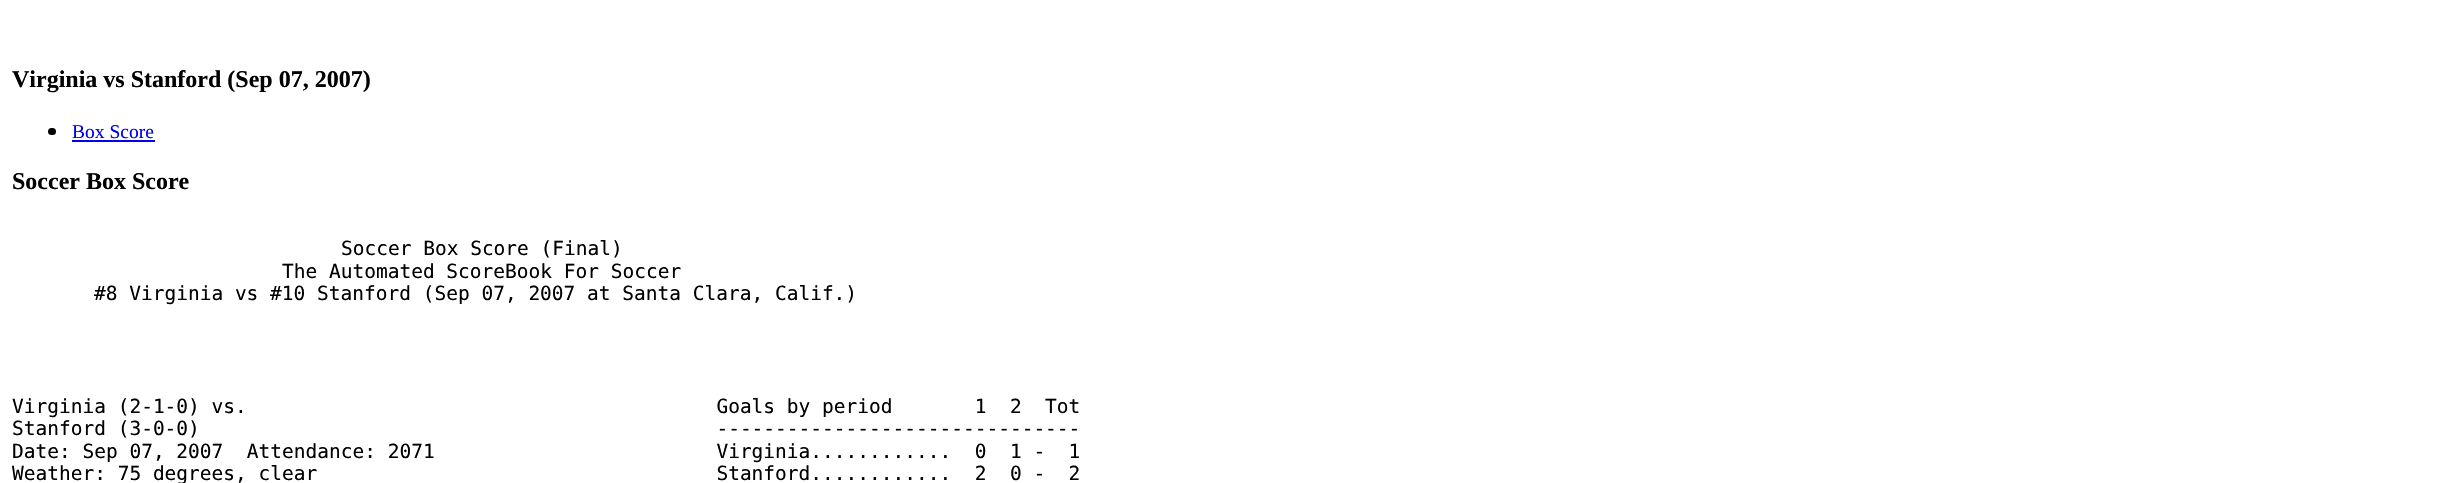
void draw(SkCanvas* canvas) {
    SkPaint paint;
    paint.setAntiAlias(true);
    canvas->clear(0xFFFFFFFF);
    SkFont font1(fontMgr->matchFamilyStyle("Liberation Serif", SkFontStyle::Bold()), 24);
    font1.setSubpixel(true);
    paint.setColor(0xFF000000);
    canvas->drawString("Virginia vs Stanford (Sep 07, 2007)", 12, 87, font1, paint);
    canvas->drawRoundRect(SkRect::MakeXYWH(48, 128, 8, 7), 3.5f, 3.5f, paint);
    SkFont font2(fontMgr->matchFamilyStyle("Liberation Serif", SkFontStyle::Normal()), 19.5f);
    font2.setSubpixel(true);
    paint.setColor(0xFF0000EE);
    canvas->drawString("Box Score", 72, 138, font2, paint);
    canvas->drawRect(SkRect::MakeXYWH(72, 140, 83, 2), paint);
    paint.setColor(0xFF000000);
    canvas->drawString("Soccer Box Score", 12, 189, font1, paint);
    SkFont font3(fontMgr->matchFamilyStyle("DejaVu Sans Mono", SkFontStyle::Normal()), 19.5f);
    font3.setSubpixel(true);
    canvas->drawString("Soccer Box Score (Final)", 341, 255, font3, paint);
    canvas->drawString("The Automated ScoreBook For Soccer", 282, 278, font3, paint);
    canvas->drawString("#8 Virginia vs #10 Stanford (Sep 07, 2007 at Santa Clara, Calif.)", 94, 300, font3, paint);
    canvas->drawString("Virginia (2-1-0) vs.                                        Goals by period       1  2  Tot", 12, 413, font3, paint);
    canvas->drawString("Stanford (3-0-0)                                            -------------------------------", 12, 435, font3, paint);
    canvas->drawString("Date: Sep 07, 2007  Attendance: 2071                        Virginia............  0  1 -  1", 12, 458, font3, paint);
    canvas->drawString("Weather: 75 degrees, clear                                  Stanford............  2  0 -  2", 12, 480, font3, paint);
}
